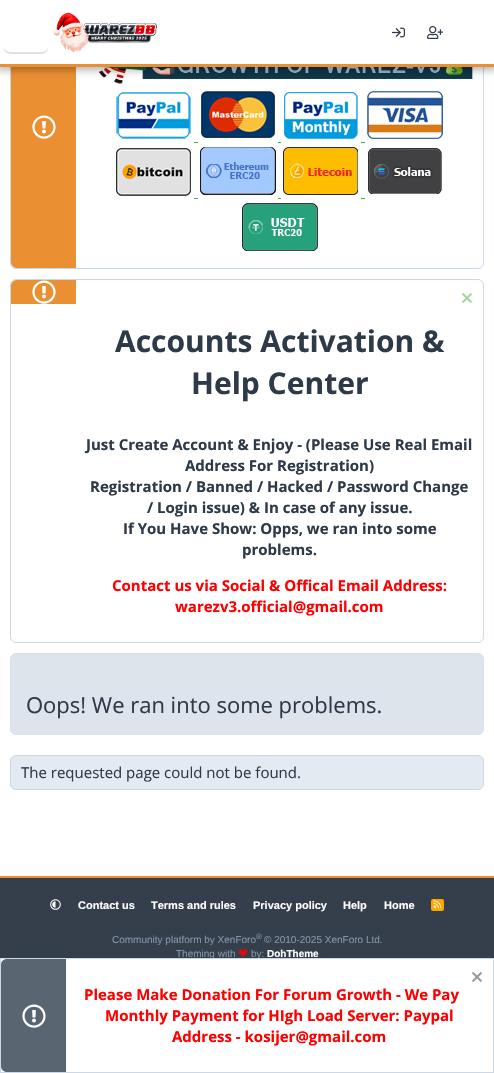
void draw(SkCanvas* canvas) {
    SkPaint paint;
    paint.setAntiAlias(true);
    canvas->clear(0xFFFFFFFF);
    paint.setStyle(SkPaint::kStroke_Style);
    paint.setStrokeWidth(1);
    paint.setColor(0xFFCAD8E7);
    canvas->drawRoundRect(SkRect::MakeXYWH(10.5f, -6.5f, 473, 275), 5.5f, 5.5f, paint);
    paint.setStyle(SkPaint::kFill_Style);
    paint.setColor(0xFFEB8F33);
    canvas->drawPath(SkPathBuilder().moveTo(17, -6).lineTo(76, -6).lineTo(76, 268).lineTo(17, 268).cubicTo(13.5f, 268, 11, 265.5f, 11, 262).lineTo(11, 0).cubicTo(11, -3.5f, 13.5f, -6, 17, -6).close().detach(), paint);
    canvas->drawImageRect(SkImages::DeferredFromEncodedData(SkData::MakeFromFileName("img5.png")), SkRect::MakeXYWH(99, 67, 374, 17), SkSamplingOptions());
    paint.setColor(0x4D000000);
    paint.setMaskFilter(SkMaskFilter::MakeBlur(kNormal_SkBlurStyle, 4));
    canvas->drawRect(SkRect::MakeXYWH(-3, -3, 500, 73), paint);
    paint.setMaskFilter(nullptr);
    paint.setColor(0xFFFFFFFF);
    canvas->drawRect(SkRect::MakeXYWH(0, 0, 494, 64), paint);
    paint.setColor(0xFFEB8F33);
    canvas->drawRect(SkRect::MakeXYWH(0, 64, 494, 3), paint);
    canvas->drawImageRect(SkImages::DeferredFromEncodedData(SkData::MakeFromFileName("img1.png")), SkRect::MakeXYWH(53, 12, 104, 41), SkSamplingOptions());
    canvas->drawImageRect(SkImages::DeferredFromEncodedData(SkData::MakeFromFileName("img2.png")), SkRect::MakeXYWH(392, 27, 13, 11), SkSamplingOptions());
    canvas->drawImageRect(SkImages::DeferredFromEncodedData(SkData::MakeFromFileName("img3.png")), SkRect::MakeXYWH(427, 26, 16, 13), SkSamplingOptions());
    paint.setColor(0xFFE0E0E0);
    canvas->drawPath(SkPathBuilder().moveTo(4, 46).cubicTo(4, 54, 8, 54, 15, 54).lineTo(37, 54).cubicTo(44, 54, 48, 54, 48, 46).cubicTo(48, 49, 45, 52, 42, 52).lineTo(10, 52).cubicTo(7, 52, 4, 49, 4, 46).close().detach(), paint);
    canvas->drawImageRect(SkImages::DeferredFromEncodedData(SkData::MakeFromFileName("img4.png")), SkRect::MakeXYWH(32, 115, 24, 24), SkSamplingOptions());
    canvas->drawImageRect(SkImages::DeferredFromEncodedData(SkData::MakeFromFileName("img6.png")), SkRect::MakeXYWH(116, 92, 75, 47), SkSamplingOptions());
    canvas->drawImageRect(SkImages::DeferredFromEncodedData(SkData::MakeFromFileName("img7.png")), SkRect::MakeXYWH(201, 91, 74, 47), SkSamplingOptions());
    canvas->drawImageRect(SkImages::DeferredFromEncodedData(SkData::MakeFromFileName("img8.png")), SkRect::MakeXYWH(284, 92, 74, 47), SkSamplingOptions());
    canvas->drawImageRect(SkImages::DeferredFromEncodedData(SkData::MakeFromFileName("img9.png")), SkRect::MakeXYWH(367, 91, 76, 48), SkSamplingOptions());
    paint.setColor(0xFF41B444);
    canvas->drawRect(SkRect::MakeXYWH(194, 142, 4, 1), paint);
    canvas->drawRect(SkRect::MakeXYWH(278, 142, 3, 1), paint);
    canvas->drawRect(SkRect::MakeXYWH(361, 142, 4, 1), paint);
    canvas->drawImageRect(SkImages::DeferredFromEncodedData(SkData::MakeFromFileName("img10.png")), SkRect::MakeXYWH(116, 148, 75, 48), SkSamplingOptions());
    canvas->drawImageRect(SkImages::DeferredFromEncodedData(SkData::MakeFromFileName("img11.png")), SkRect::MakeXYWH(200, 147, 76, 48), SkSamplingOptions());
    canvas->drawImageRect(SkImages::DeferredFromEncodedData(SkData::MakeFromFileName("img12.png")), SkRect::MakeXYWH(283, 147, 75, 48), SkSamplingOptions());
    canvas->drawImageRect(SkImages::DeferredFromEncodedData(SkData::MakeFromFileName("img13.png")), SkRect::MakeXYWH(368, 148, 74, 46), SkSamplingOptions());
    canvas->drawRect(SkRect::MakeXYWH(194, 198, 4, 1), paint);
    canvas->drawRect(SkRect::MakeXYWH(278, 198, 3, 1), paint);
    canvas->drawRect(SkRect::MakeXYWH(361, 198, 4, 1), paint);
    canvas->drawImageRect(SkImages::DeferredFromEncodedData(SkData::MakeFromFileName("img14.png")), SkRect::MakeXYWH(242, 203, 76, 48), SkSamplingOptions());
    paint.setStyle(SkPaint::kStroke_Style);
    paint.setColor(0xFFCAD8E7);
    canvas->drawRoundRect(SkRect::MakeXYWH(10.5f, 279.5f, 473, 363), 5.5f, 5.5f, paint);
    paint.setStyle(SkPaint::kFill_Style);
    paint.setColor(0xFFEB8F33);
    canvas->drawPath(SkPathBuilder().moveTo(17, 280).lineTo(76, 280).lineTo(76, 304).lineTo(11, 304).lineTo(11, 286).cubicTo(11, 282.5f, 13.5f, 280, 17, 280).close().detach(), paint);
    canvas->drawImageRect(SkImages::DeferredFromEncodedData(SkData::MakeFromFileName("img4.png")), SkRect::MakeXYWH(32, 280, 24, 24), SkSamplingOptions());
    canvas->drawImageRect(SkImages::DeferredFromEncodedData(SkData::MakeFromFileName("img15.png")), SkRect::MakeXYWH(462, 293, 10, 10), SkSamplingOptions());
    SkFont font1(fontMgr->matchFamilyStyle("Open Sans", SkFontStyle::Bold()), 30);
    font1.setSubpixel(true);
    paint.setColor(0xFF2E3A47);
    canvas->drawString("Accounts Activation &", 115, 352, font1, paint);
    canvas->drawString("Help Center", 191, 394, font1, paint);
    SkFont font2(fontMgr->matchFamilyStyle("Open Sans", SkFontStyle::Bold()), 15);
    font2.setSubpixel(true);
    canvas->drawString("Just Create Account & Enjoy - (Please Use Real Email", 86, 450, font2, paint);
    canvas->drawString("Address For Registration)", 185, 471, font2, paint);
    canvas->drawString("Registration / Banned / Hacked / Password Change", 90, 492, font2, paint);
    canvas->drawString("/ Login issue) & In case of any issue.", 147, 513, font2, paint);
    canvas->drawString("If You Have Show: Opps, we ran into some", 123, 534, font2, paint);
    canvas->drawString("problems.", 242, 555, font2, paint);
    paint.setColor(0xFFFF0000);
    canvas->drawString("Contact us via Social & Offical Email Address:", 112, 591, font2, paint);
    canvas->drawString("warezv3.official@gmail.com", 175, 612, font2, paint);
    paint.setColor(0xFFDDE4EC);
    canvas->drawRoundRect(SkRect::MakeXYWH(10.5f, 653.5f, 473, 81), 5.5f, 5.5f, paint);
    paint.setStyle(SkPaint::kStroke_Style);
    paint.setColor(0xFFD8E2EE);
    canvas->drawRoundRect(SkRect::MakeXYWH(10.5f, 653.5f, 473, 81), 5.5f, 5.5f, paint);
    SkFont font3(fontMgr->matchFamilyStyle("Open Sans", SkFontStyle::Normal()), 22);
    font3.setSubpixel(true);
    paint.setStyle(SkPaint::kFill_Style);
    paint.setColor(0xFF2E3A47);
    canvas->drawString("Oops! We ran into some problems.", 26, 713, font3, paint);
    paint.setColor(0xFFE4EAF1);
    canvas->drawRoundRect(SkRect::MakeXYWH(10.5f, 755.5f, 473, 34), 5.5f, 5.5f, paint);
    paint.setStyle(SkPaint::kStroke_Style);
    paint.setColor(0xFFCAD8E7);
    canvas->drawRoundRect(SkRect::MakeXYWH(10.5f, 755.5f, 473, 34), 5.5f, 5.5f, paint);
    SkFont font4(fontMgr->matchFamilyStyle("Open Sans", SkFontStyle::Normal()), 15);
    font4.setSubpixel(true);
    paint.setStyle(SkPaint::kFill_Style);
    paint.setColor(0xFF2E3A47);
    canvas->drawString("The requested page could not be found.", 21, 778, font4, paint);
    paint.setColor(0xFF353F4B);
    canvas->drawRect(SkRect::MakeXYWH(0, 878, 494, 80), paint);
    paint.setColor(0xFFEB8F33);
    canvas->drawRect(SkRect::MakeXYWH(0, 876, 494, 2), paint);
    canvas->drawImageRect(SkImages::DeferredFromEncodedData(SkData::MakeFromFileName("img16.png")), SkRect::MakeXYWH(50, 899, 11, 11), SkSamplingOptions());
    SkFont font5(fontMgr->matchFamilyStyle("Liberation Sans", SkFontStyle::Bold()), 11);
    font5.setSubpixel(true);
    paint.setColor(0xFFFFFFFF);
    canvas->drawString("Contact us", 78, 909, font5, paint);
    canvas->drawString("Terms and rules", 151, 909, font5, paint);
    canvas->drawString("Privacy policy", 253, 909, font5, paint);
    canvas->drawString("Help", 343, 909, font5, paint);
    canvas->drawString("Home", 384, 909, font5, paint);
    paint.setColor(0xFFFFA500);
    canvas->drawRoundRect(SkRect::MakeXYWH(431, 899, 13, 12), 2, 2, paint);
    canvas->drawImageRect(SkImages::DeferredFromEncodedData(SkData::MakeFromFileName("img17.png")), SkRect::MakeXYWH(433, 900, 9, 9), SkSamplingOptions());
    SkFont font6(fontMgr->matchFamilyStyle("Liberation Sans", SkFontStyle::Normal()), 10);
    font6.setSubpixel(true);
    paint.setColor(0xFF8594A8);
    canvas->drawString("Community platform by XenForo", 112, 943, font6, paint);
    SkFont font7(fontMgr->matchFamilyStyle("Liberation Sans", SkFontStyle::Normal()), 8);
    font7.setSubpixel(true);
    canvas->drawString("®", 256, 939, font7, paint);
    canvas->drawString("© 2010-2025 XenForo Ltd.", 264, 943, font6, paint);
    canvas->drawString("Theming with", 176, 957, font6, paint);
    canvas->drawImageRect(SkImages::DeferredFromEncodedData(SkData::MakeFromFileName("img18.png")), SkRect::MakeXYWH(238, 948, 10, 10), SkSamplingOptions());
    canvas->drawString("by:", 251, 957, font6, paint);
    SkFont font8(fontMgr->matchFamilyStyle("Liberation Sans", SkFontStyle::Bold()), 10);
    font8.setSubpixel(true);
    paint.setColor(0xFFFFFFFF);
    canvas->drawString("DohTheme", 267, 957, font8, paint);
    canvas->drawRect(SkRect::MakeXYWH(211, 959, 46, 1), paint);
    paint.setStyle(SkPaint::kStroke_Style);
    paint.setColor(0xFFCAD8E7);
    canvas->drawRect(SkRect::MakeXYWH(0.5f, 958.5f, 493, 114), paint);
    paint.setStyle(SkPaint::kFill_Style);
    paint.setColor(0xFF5A6572);
    canvas->drawPath(SkPathBuilder().moveTo(7, 959).lineTo(66, 959).lineTo(66, 1072).lineTo(7, 1072).cubicTo(3.5f, 1072, 1, 1069.5f, 1, 1066).lineTo(1, 965).cubicTo(1, 961.5f, 3.5f, 959, 7, 959).close().detach(), paint);
    canvas->drawImageRect(SkImages::DeferredFromEncodedData(SkData::MakeFromFileName("img19.png")), SkRect::MakeXYWH(22, 1004, 24, 24), SkSamplingOptions());
    canvas->drawImageRect(SkImages::DeferredFromEncodedData(SkData::MakeFromFileName("img20.png")), SkRect::MakeXYWH(472, 972, 10, 10), SkSamplingOptions());
    paint.setColor(0xFFFF0000);
    canvas->drawString("Please Make Donation For Forum Growth - We Pay", 84, 1000, font2, paint);
    canvas->drawString("Monthly Payment for HIgh Load Server: Paypal", 105, 1021, font2, paint);
    canvas->drawString("Address - kosijer@gmail.com", 172, 1042, font2, paint);
}
